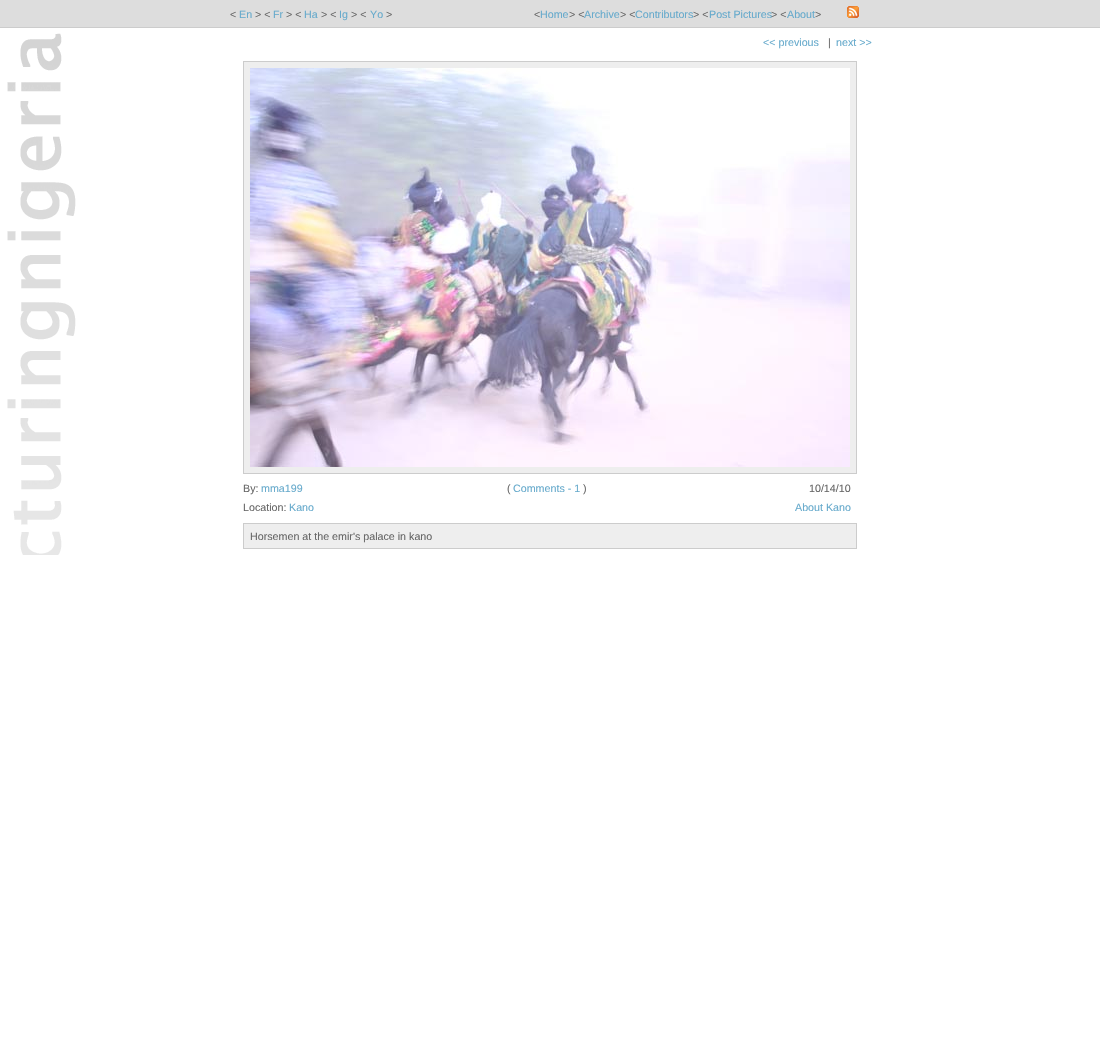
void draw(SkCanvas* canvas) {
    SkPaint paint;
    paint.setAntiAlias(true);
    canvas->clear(0xFFFFFFFF);
    paint.setColor(0xFFDDDDDD);
    canvas->drawRect(SkRect::MakeXYWH(0, 0, 1100, 27), paint);
    paint.setColor(0xFFCCCCCC);
    canvas->drawRect(SkRect::MakeXYWH(0, 27, 1100, 1), paint);
    SkFont font1(fontMgr->matchFamilyStyle("Liberation Sans", SkFontStyle::Normal()), 10.7f);
    font1.setSubpixel(true);
    paint.setColor(0xFF666666);
    canvas->drawString("<", 230, 18, font1, paint);
    paint.setColor(0xFF66AACC);
    canvas->drawString("En", 239, 18, font1, paint);
    paint.setColor(0xFF666666);
    canvas->drawString("> <", 255, 18, font1, paint);
    paint.setColor(0xFF66AACC);
    canvas->drawString("Fr", 273, 18, font1, paint);
    paint.setColor(0xFF666666);
    canvas->drawString("> <", 286, 18, font1, paint);
    paint.setColor(0xFF66AACC);
    canvas->drawString("Ha", 304, 18, font1, paint);
    paint.setColor(0xFF666666);
    canvas->drawString("> <", 321, 18, font1, paint);
    paint.setColor(0xFF66AACC);
    canvas->drawString("Ig", 339, 18, font1, paint);
    paint.setColor(0xFF666666);
    canvas->drawString("> <", 351, 18, font1, paint);
    paint.setColor(0xFF66AACC);
    canvas->drawString("Yo", 370, 18, font1, paint);
    paint.setColor(0xFF666666);
    canvas->drawString(">", 386, 18, font1, paint);
    canvas->drawString("<", 534, 18, font1, paint);
    paint.setColor(0xFF66AACC);
    canvas->drawString("Home", 540, 18, font1, paint);
    paint.setColor(0xFF666666);
    canvas->drawString("> <", 569, 18, font1, paint);
    paint.setColor(0xFF66AACC);
    canvas->drawString("Archive", 584, 18, font1, paint);
    paint.setColor(0xFF666666);
    canvas->drawString("> <", 620, 18, font1, paint);
    paint.setColor(0xFF66AACC);
    canvas->drawString("Contributors", 635, 18, font1, paint);
    paint.setColor(0xFF666666);
    canvas->drawString("> <", 693, 18, font1, paint);
    paint.setColor(0xFF66AACC);
    canvas->drawString("Post Pictures", 709, 18, font1, paint);
    paint.setColor(0xFF666666);
    canvas->drawString("> <", 771, 18, font1, paint);
    paint.setColor(0xFF66AACC);
    canvas->drawString("About", 787, 18, font1, paint);
    paint.setColor(0xFF666666);
    canvas->drawString(">", 815, 18, font1, paint);
    canvas->drawImageRect(SkImages::DeferredFromEncodedData(SkData::MakeFromFileName("img1.png")), SkRect::MakeXYWH(847, 6, 12, 12), SkSamplingOptions());
    canvas->drawImageRect(SkImages::DeferredFromEncodedData(SkData::MakeFromFileName("img2.png")), SkRect::MakeXYWH(7, 33, 69, 522), SkSamplingOptions());
    paint.setColor(0xFF66AACC);
    canvas->drawString("<< previous", 763, 46, font1, paint);
    paint.setColor(0xFF666666);
    canvas->drawString("|", 828, 46, font1, paint);
    paint.setColor(0xFF66AACC);
    canvas->drawString("next >>", 836, 46, font1, paint);
    paint.setColor(0xFFEEEEEE);
    canvas->drawRect(SkRect::MakeXYWH(243.5f, 61.5f, 613, 412), paint);
    paint.setStyle(SkPaint::kStroke_Style);
    paint.setStrokeWidth(1);
    paint.setColor(0xFFCCCCCC);
    canvas->drawRect(SkRect::MakeXYWH(243.5f, 61.5f, 613, 412), paint);
    canvas->drawImageRect(SkImages::DeferredFromEncodedData(SkData::MakeFromFileName("img3.png")), SkRect::MakeXYWH(250, 68, 600, 399), SkSamplingOptions());
    paint.setStyle(SkPaint::kFill_Style);
    paint.setColor(0xFF666666);
    canvas->drawString("By:", 243, 492, font1, paint);
    paint.setColor(0xFF66AACC);
    canvas->drawString("mma199", 261, 492, font1, paint);
    paint.setColor(0xFF666666);
    canvas->drawString("(", 507, 492, font1, paint);
    paint.setColor(0xFF66AACC);
    canvas->drawString("Comments - 1", 513, 492, font1, paint);
    paint.setColor(0xFF666666);
    canvas->drawString(")", 583, 492, font1, paint);
    canvas->drawString("10/14/10", 809, 492, font1, paint);
    canvas->drawString("Location:", 243, 511, font1, paint);
    paint.setColor(0xFF66AACC);
    canvas->drawString("Kano", 289, 511, font1, paint);
    canvas->drawString("About Kano", 795, 511, font1, paint);
    paint.setColor(0xFFEEEEEE);
    canvas->drawRect(SkRect::MakeXYWH(243.5f, 523.5f, 613, 25), paint);
    paint.setStyle(SkPaint::kStroke_Style);
    paint.setColor(0xFFCCCCCC);
    canvas->drawRect(SkRect::MakeXYWH(243.5f, 523.5f, 613, 25), paint);
    paint.setStyle(SkPaint::kFill_Style);
    paint.setColor(0xFF666666);
    canvas->drawString("Horsemen at the emir's palace in kano", 250, 540, font1, paint);
}
